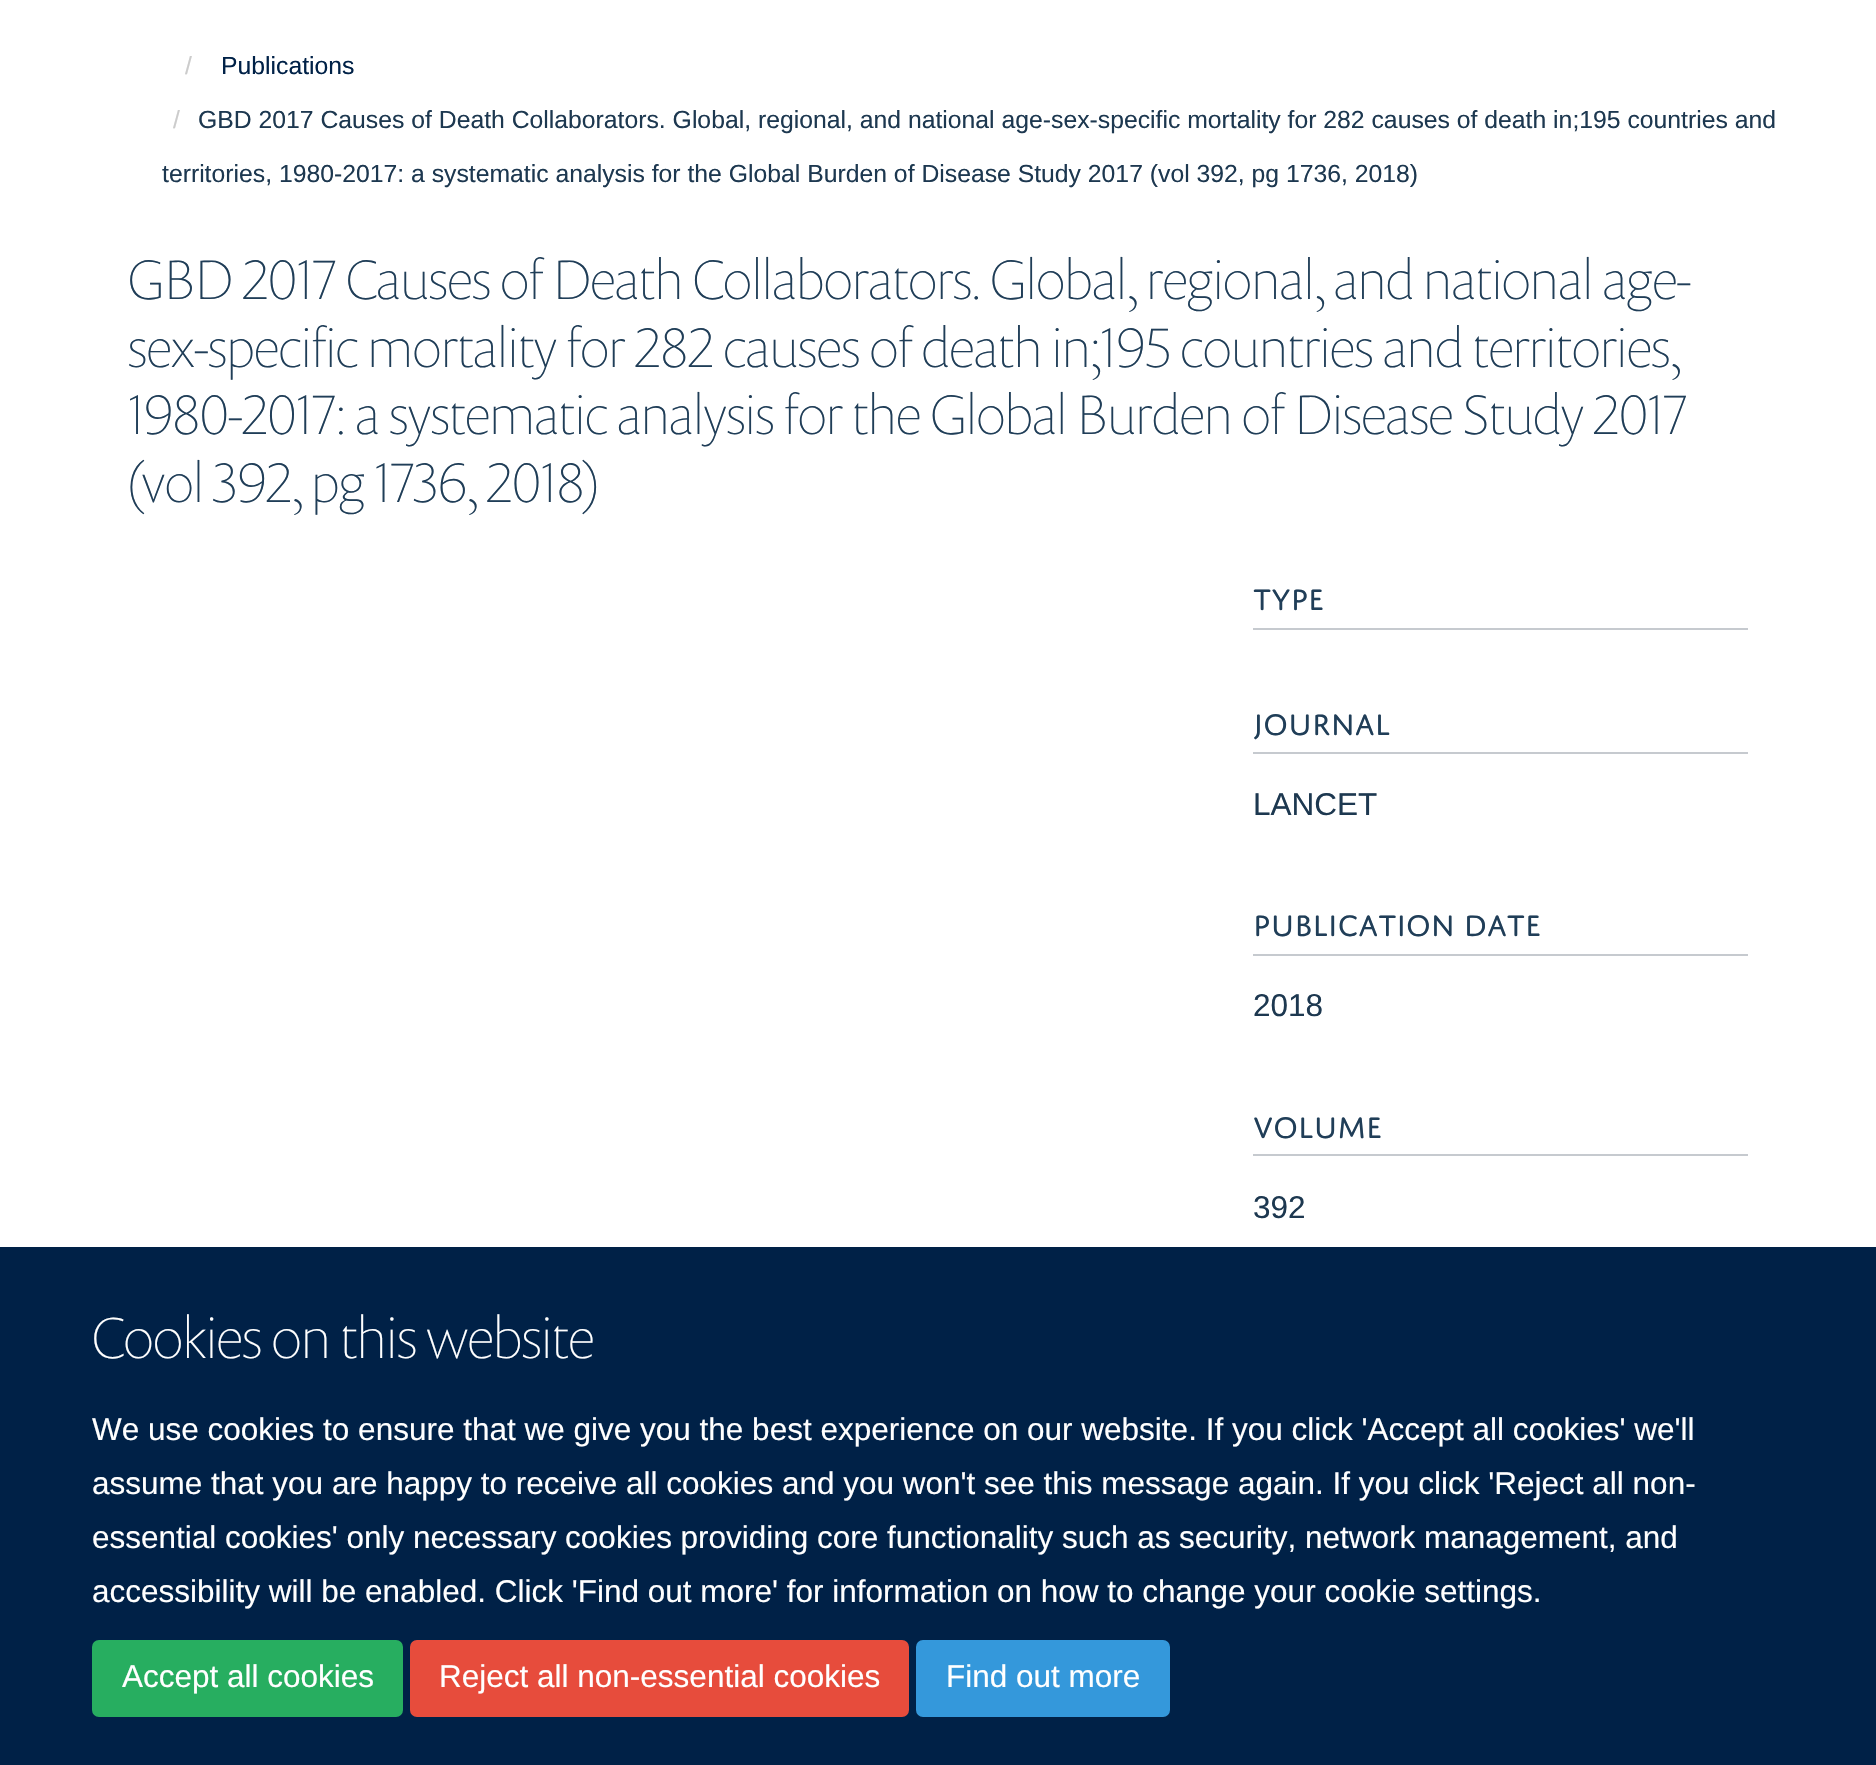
void draw(SkCanvas* canvas) {
    SkPaint paint;
    paint.setAntiAlias(true);
    auto spacedText = [&](const char* s, float x, float y, const SkFont& font, const SkPaint& ink, float letter, float word) {
        std::vector<SkGlyphID> glyphs(font.countText(s, strlen(s), SkTextEncoding::kUTF8));
        std::vector<float> xs(glyphs.size());
        font.textToGlyphs(s, strlen(s), SkTextEncoding::kUTF8, glyphs);
        font.getXPos(glyphs, xs, x);
        float extra = 0;
        for (size_t i = 0; i < glyphs.size(); i++) {
            xs[i] += extra;
            extra += letter + word * (glyphs[i] == font.unicharToGlyph(' '));
        }
        canvas->drawTextBlob(SkTextBlob::MakeFromPosHGlyphs(glyphs, xs, y, font), 0, 0, ink);
    };
    canvas->clear(0xFFFFFFFF);
    SkFont font1(fontMgr->matchFamilyStyle("Liberation Sans", SkFontStyle::Normal()), 24.75f);
    font1.setSubpixel(true);
    paint.setColor(0xFFCCCCCC);
    canvas->drawString("/", 185, 74, font1, paint);
    paint.setColor(0xFF002147);
    canvas->drawString("Publications", 221, 74, font1, paint);
    paint.setColor(0xFFCCCCCC);
    canvas->drawString("/", 173, 128, font1, paint);
    paint.setColor(0xFF1D3850);
    canvas->drawString("GBD 2017 Causes of Death Collaborators. Global, regional, and national age-sex-specific mortality for 282 causes of death in;195 countries and", 198, 128, font1, paint);
    canvas->drawString("territories, 1980-2017: a systematic analysis for the Global Burden of Disease Study 2017 (vol 392, pg 1736, 2018)", 162, 182, font1, paint);
    SkFont font2(fontMgr->matchFamilyStyle("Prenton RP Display", SkFontStyle(100, SkFontStyle::kNormal_Width, SkFontStyle::kUpright_Slant)), 56.25f);
    font2.setSubpixel(true);
    paint.setColor(0xFF203E58);
    canvas->drawString("GBD 2017 Causes of Death Collaborators. Global, regional, and national age-", 128, 299, font2, paint);
    canvas->drawString("sex-specific mortality for 282 causes of death in;195 countries and territories,", 128, 367, font2, paint);
    canvas->drawString("1980-2017: a systematic analysis for the Global Burden of Disease Study 2017", 128, 434, font2, paint);
    canvas->drawString("(vol 392, pg 1736, 2018)", 128, 502, font2, paint);
    paint.setColor(0xFFC6CACF);
    canvas->drawRect(SkRect::MakeXYWH(1253, 628, 495, 2), paint);
    SkFont font3(fontMgr->matchFamilyStyle("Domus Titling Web", SkFontStyle::Normal()), 31.5f);
    font3.setSubpixel(true);
    paint.setColor(0xFF203E58);
    canvas->drawString("TYPE", 1253, 610, font3, paint);
    paint.setColor(0xFFC6CACF);
    canvas->drawRect(SkRect::MakeXYWH(1253, 752, 495, 2), paint);
    paint.setColor(0xFF203E58);
    canvas->drawString("JOURNAL", 1253, 735, font3, paint);
    SkFont font4(fontMgr->matchFamilyStyle("Liberation Sans", SkFontStyle::Normal()), 31.5f);
    font4.setSubpixel(true);
    paint.setColor(0xFF1D3850);
    canvas->drawString("LANCET", 1253, 815, font4, paint);
    paint.setColor(0xFFC6CACF);
    canvas->drawRect(SkRect::MakeXYWH(1253, 954, 495, 2), paint);
    paint.setColor(0xFF203E58);
    canvas->drawString("PUBLICATION DATE", 1253, 936, font3, paint);
    paint.setColor(0xFF1D3850);
    canvas->drawString("2018", 1253, 1016, font4, paint);
    paint.setColor(0xFFC6CACF);
    canvas->drawRect(SkRect::MakeXYWH(1253, 1154, 495, 2), paint);
    paint.setColor(0xFF203E58);
    canvas->drawString("VOLUME", 1253, 1138, font3, paint);
    paint.setColor(0xFF1D3850);
    canvas->drawString("392", 1253, 1218, font4, paint);
    paint.setColor(0xFF002147);
    canvas->drawRect(SkRect::MakeXYWH(0, 1247, 1876, 518), paint);
    SkFont font5(fontMgr->matchFamilyStyle("Prenton RP Display", SkFontStyle(100, SkFontStyle::kNormal_Width, SkFontStyle::kUpright_Slant)), 58.5f);
    font5.setSubpixel(true);
    paint.setColor(0xFFFFFFFF);
    canvas->drawString("Cookies on this website", 92, 1358, font5, paint);
    canvas->drawString("We use cookies to ensure that we give you the best experience on our website. If you click 'Accept all cookies' we'll", 92, 1440, font4, paint);
    canvas->drawString("assume that you are happy to receive all cookies and you won't see this message again. If you click 'Reject all non-", 92, 1494, font4, paint);
    spacedText("essential cookies' only necessary cookies providing core functionality such as security, network management, and", 92, 1548, font4, paint, 0, -0.1f);
    canvas->drawString("accessibility will be enabled. Click 'Find out more' for information on how to change your cookie settings.", 92, 1602, font4, paint);
    paint.setColor(0xFF27AE60);
    canvas->drawRoundRect(SkRect::MakeXYWH(93, 1641, 309, 75), 6, 6, paint);
    paint.setStyle(SkPaint::kStroke_Style);
    paint.setStrokeWidth(2);
    canvas->drawRoundRect(SkRect::MakeXYWH(93, 1641, 309, 75), 6, 6, paint);
    paint.setStyle(SkPaint::kFill_Style);
    paint.setColor(0xFFFFFFFF);
    canvas->drawString("Accept all cookies", 122, 1687, font4, paint);
    paint.setColor(0xFFE74C3C);
    canvas->drawRoundRect(SkRect::MakeXYWH(411, 1641, 497, 75), 6, 6, paint);
    paint.setStyle(SkPaint::kStroke_Style);
    canvas->drawRoundRect(SkRect::MakeXYWH(411, 1641, 497, 75), 6, 6, paint);
    paint.setStyle(SkPaint::kFill_Style);
    paint.setColor(0xFFFFFFFF);
    canvas->drawString("Reject all non-essential cookies", 439, 1687, font4, paint);
    paint.setColor(0xFF3498DB);
    canvas->drawRoundRect(SkRect::MakeXYWH(917, 1641, 252, 75), 6, 6, paint);
    paint.setStyle(SkPaint::kStroke_Style);
    canvas->drawRoundRect(SkRect::MakeXYWH(917, 1641, 252, 75), 6, 6, paint);
    paint.setStyle(SkPaint::kFill_Style);
    paint.setColor(0xFFFFFFFF);
    canvas->drawString("Find out more", 946, 1687, font4, paint);
}
